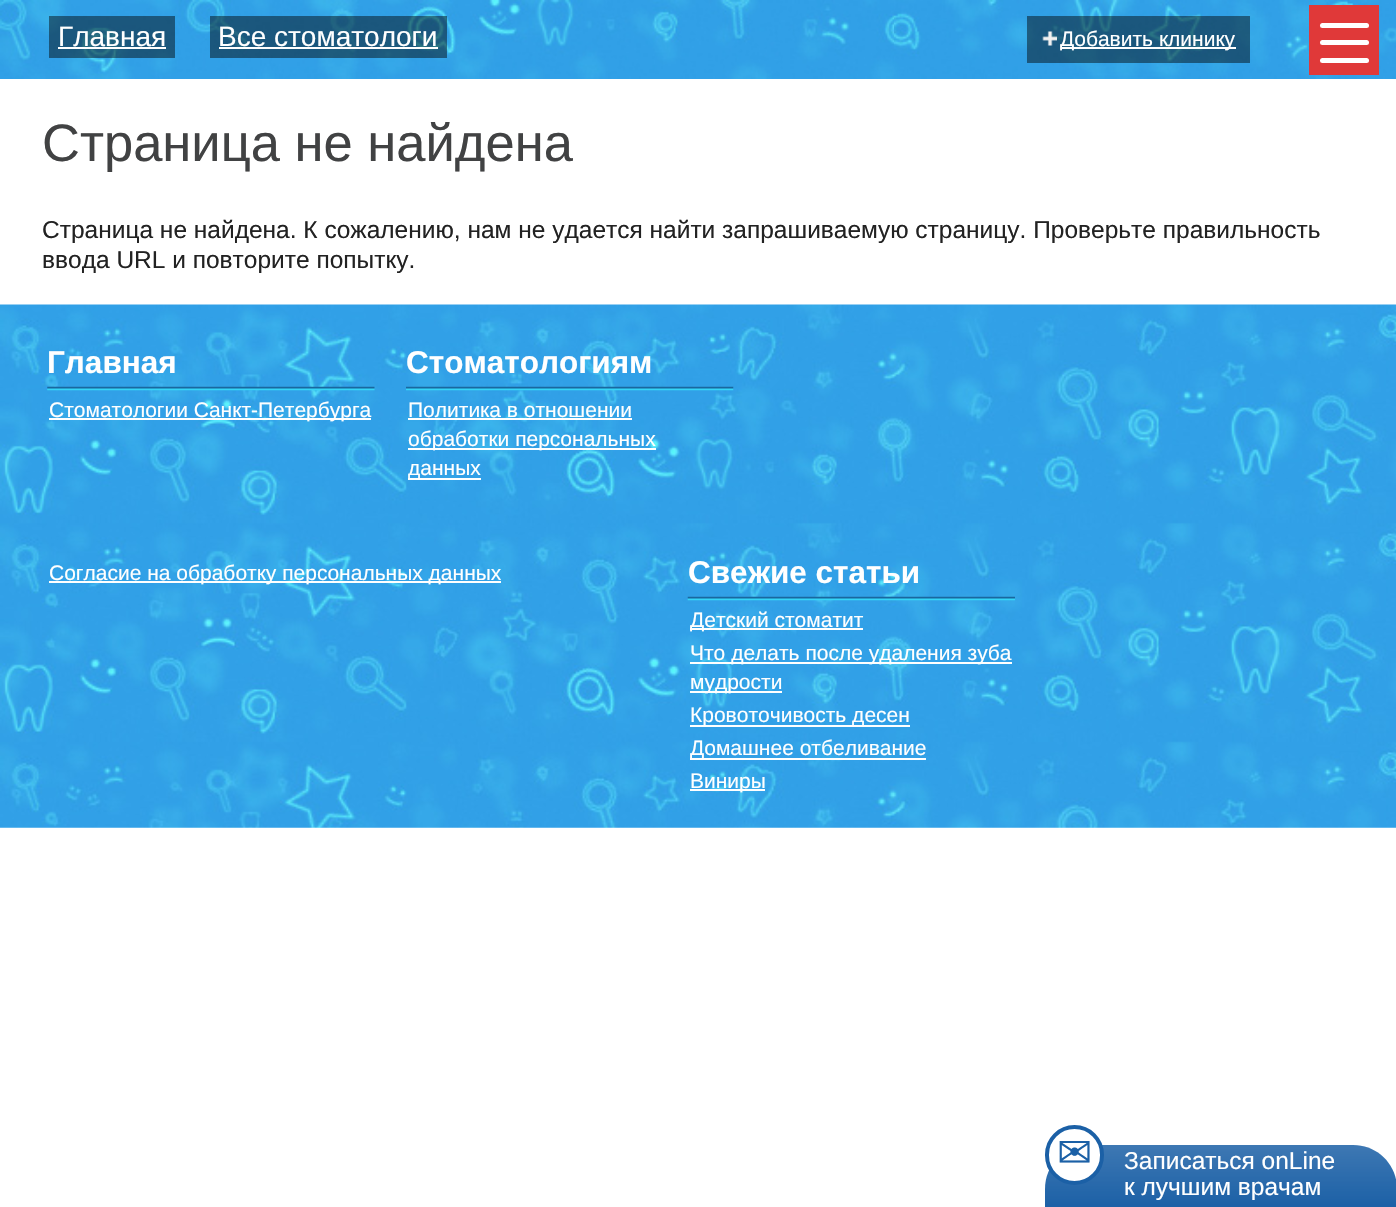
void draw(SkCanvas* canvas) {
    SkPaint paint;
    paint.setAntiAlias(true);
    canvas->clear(0xFFFFFFFF);
    canvas->drawImageRect(SkImages::DeferredFromEncodedData(SkData::MakeFromFileName("img1.png")), SkRect::MakeXYWH(0, 0, 1396, 79), SkSamplingOptions());
    paint.setColor(0x75000000);
    canvas->drawRect(SkRect::MakeXYWH(49, 16, 126, 42), paint);
    SkFont font1(fontMgr->matchFamilyStyle("Liberation Sans", SkFontStyle::Normal()), 28);
    font1.setSubpixel(true);
    paint.setColor(0xFFFFFFFF);
    canvas->drawString("Главная", 58, 46, font1, paint);
    canvas->drawRect(SkRect::MakeXYWH(58, 47, 108, 2), paint);
    paint.setColor(0x75000000);
    canvas->drawRect(SkRect::MakeXYWH(210, 16, 237, 42), paint);
    paint.setColor(0xFFFFFFFF);
    canvas->drawString("Все стоматологи", 218, 46, font1, paint);
    canvas->drawRect(SkRect::MakeXYWH(219, 47, 219, 2), paint);
    paint.setColor(0x75000000);
    canvas->drawRect(SkRect::MakeXYWH(1027, 16, 223, 47), paint);
    canvas->drawImageRect(SkImages::DeferredFromEncodedData(SkData::MakeFromFileName("img2.png")), SkRect::MakeXYWH(1042, 31, 15, 15), SkSamplingOptions());
    paint.setColor(0xFFFFFFFF);
    canvas->drawRect(SkRect::MakeXYWH(1061, 47, 175, 2), paint);
    SkFont font2(fontMgr->matchFamilyStyle("Liberation Sans", SkFontStyle::Normal()), 21);
    font2.setSubpixel(true);
    canvas->drawString("Добавить клинику", 1060, 46, font2, paint);
    paint.setColor(0xFFE03939);
    canvas->drawRect(SkRect::MakeXYWH(1309, 5, 70, 70), paint);
    paint.setColor(0xFFFFFFFF);
    canvas->drawRoundRect(SkRect::MakeXYWH(1320, 23, 49, 5), 2.5f, 2.5f, paint);
    canvas->drawRoundRect(SkRect::MakeXYWH(1320, 40, 49, 5), 2.5f, 2.5f, paint);
    canvas->drawRoundRect(SkRect::MakeXYWH(1320, 58, 49, 5), 2.5f, 2.5f, paint);
    SkFont font3(fontMgr->matchFamilyStyle("Liberation Sans", SkFontStyle::Normal()), 52.5f);
    font3.setSubpixel(true);
    paint.setColor(0xFF414243);
    canvas->drawString("Страница не найдена", 42, 161, font3, paint);
    SkFont font4(fontMgr->matchFamilyStyle("Liberation Sans", SkFontStyle::Normal()), 24.5f);
    font4.setSubpixel(true);
    paint.setColor(0xFF222222);
    canvas->drawString("Страница не найдена. К сожалению, нам не удается найти запрашиваемую страницу. Проверьте правильность", 42, 238, font4, paint);
    canvas->drawString("ввода URL и повторите попытку.", 42, 268, font4, paint);
    canvas->drawImageRect(SkImages::DeferredFromEncodedData(SkData::MakeFromFileName("img3.png")), SkRect::MakeXYWH(0, 304, 1396, 524), SkSamplingOptions());
    canvas->drawImageRect(SkImages::DeferredFromEncodedData(SkData::MakeFromFileName("img4.png")), SkRect::MakeXYWH(47, 386, 328, 5), SkSamplingOptions());
    SkFont font5(fontMgr->matchFamilyStyle("Liberation Sans", SkFontStyle::Bold()), 31.5f);
    font5.setSubpixel(true);
    paint.setColor(0xFFFFFFFF);
    canvas->drawString("Главная", 47, 373, font5, paint);
    canvas->drawRect(SkRect::MakeXYWH(49, 418, 322, 2), paint);
    canvas->drawString("Стоматологии Санкт-Петербурга", 49, 417, font2, paint);
    canvas->drawImageRect(SkImages::DeferredFromEncodedData(SkData::MakeFromFileName("img5.png")), SkRect::MakeXYWH(406, 386, 328, 5), SkSamplingOptions());
    canvas->drawString("Стоматологиям", 406, 373, font5, paint);
    canvas->drawString("Политика в отношении", 408, 417, font2, paint);
    canvas->drawRect(SkRect::MakeXYWH(408, 418, 224, 2), paint);
    canvas->drawRect(SkRect::MakeXYWH(408, 448, 248, 2), paint);
    canvas->drawString("обработки персональных", 408, 446, font2, paint);
    canvas->drawRect(SkRect::MakeXYWH(408, 478, 73, 2), paint);
    canvas->drawString("данных", 408, 475, font2, paint);
    canvas->drawRect(SkRect::MakeXYWH(49, 581, 452, 2), paint);
    canvas->drawString("Согласие на обработку персональных данных", 49, 580, font2, paint);
    canvas->drawImageRect(SkImages::DeferredFromEncodedData(SkData::MakeFromFileName("img6.png")), SkRect::MakeXYWH(687, 596, 328, 5), SkSamplingOptions());
    canvas->drawString("Свежие статьи", 688, 583, font5, paint);
    canvas->drawRect(SkRect::MakeXYWH(690, 628, 173, 2), paint);
    canvas->drawString("Детский стоматит", 690, 627, font2, paint);
    canvas->drawRect(SkRect::MakeXYWH(690, 662, 322, 2), paint);
    canvas->drawString("Что делать после удаления зуба", 690, 660, font2, paint);
    canvas->drawRect(SkRect::MakeXYWH(690, 691, 92, 2), paint);
    canvas->drawString("мудрости", 690, 689, font2, paint);
    canvas->drawRect(SkRect::MakeXYWH(690, 725, 220, 2), paint);
    canvas->drawString("Кровоточивость десен", 690, 722, font2, paint);
    canvas->drawRect(SkRect::MakeXYWH(690, 758, 236, 2), paint);
    canvas->drawString("Домашнее отбеливание", 690, 755, font2, paint);
    canvas->drawRect(SkRect::MakeXYWH(690, 789, 75, 2), paint);
    canvas->drawString("Виниры", 690, 788, font2, paint);
    paint.setColor(0xFF1B60A6);
    canvas->drawPath(SkPathBuilder().moveTo(1089, 1145).lineTo(1353, 1145).cubicTo(1377.5f, 1145, 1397, 1164.5f, 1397, 1189).lineTo(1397, 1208).lineTo(1045, 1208).lineTo(1045, 1189).cubicTo(1045, 1164.5f, 1064.5f, 1145, 1089, 1145).close().detach(), paint);
    {
        const SkColor colors[] = {0x26FFFFFF, 0x00FFFFFF};
        const float stops[] = {0, 1};
        const SkPoint ends[] = {{1221, 1145}, {1221, 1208}};
        paint.setShader(SkGradientShader::MakeLinear(ends, colors, stops, 2, SkTileMode::kClamp));
        paint.setAlpha(255);
    }
    canvas->drawPath(SkPathBuilder().moveTo(1089, 1145).lineTo(1353, 1145).cubicTo(1377.5f, 1145, 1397, 1164.5f, 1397, 1189).lineTo(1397, 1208).lineTo(1045, 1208).lineTo(1045, 1189).cubicTo(1045, 1164.5f, 1064.5f, 1145, 1089, 1145).close().detach(), paint);
    paint.setShader(nullptr);
    paint.setColor(0xFFFFFFFF);
    canvas->drawRoundRect(SkRect::MakeXYWH(1047, 1127, 55, 56), 27.5f, 27.5f, paint);
    paint.setStyle(SkPaint::kStroke_Style);
    paint.setStrokeWidth(4);
    paint.setColor(0xFF1B60A6);
    canvas->drawRoundRect(SkRect::MakeXYWH(1047, 1127, 55, 56), 27.5f, 27.5f, paint);
    SkFont font6(fontMgr->matchFamilyStyle("DejaVu Sans", SkFontStyle::Normal()), 42);
    font6.setSubpixel(true);
    paint.setStyle(SkPaint::kFill_Style);
    canvas->drawString("✉", 1057, 1167, font6, paint);
    paint.setColor(0xFFFFFFFF);
    canvas->drawString("Записаться onLine", 1124, 1169, font4, paint);
    canvas->drawString("к лучшим врачам", 1124, 1195, font4, paint);
}
